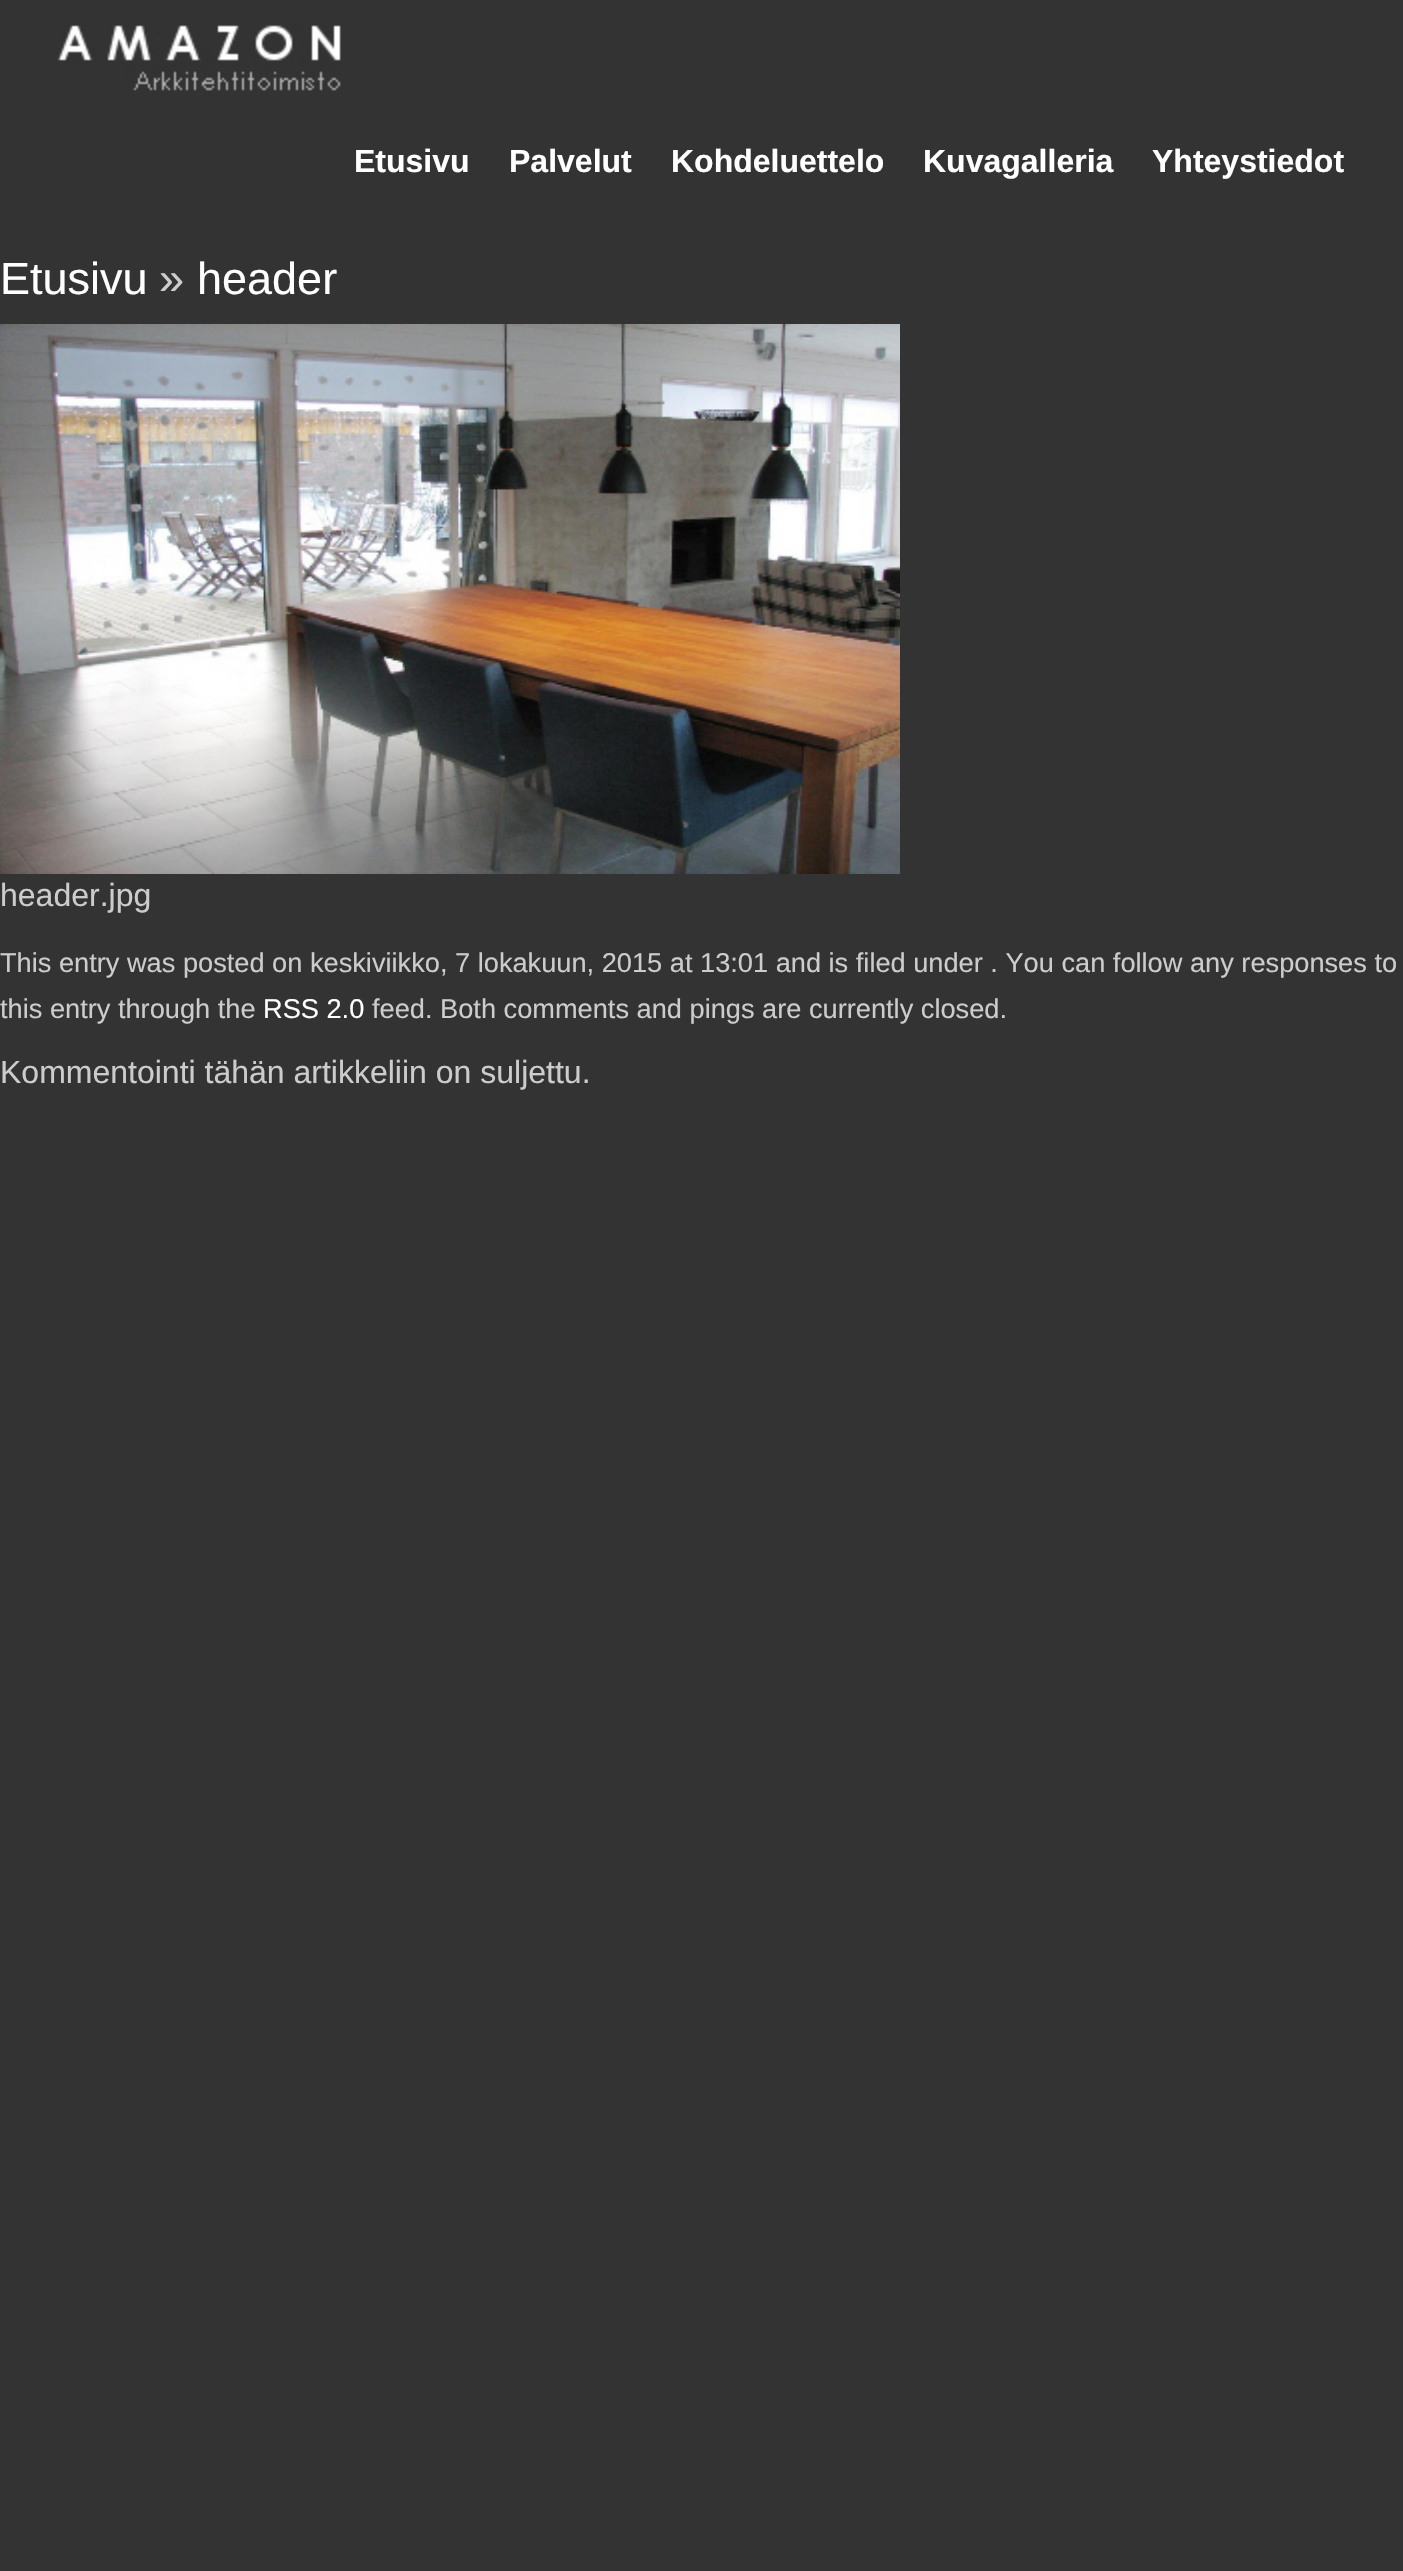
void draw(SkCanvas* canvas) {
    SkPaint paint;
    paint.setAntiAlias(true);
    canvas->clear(0xFF333333);
    canvas->drawImageRect(SkImages::DeferredFromEncodedData(SkData::MakeFromFileName("img1.png")), SkRect::MakeXYWH(57, 25, 284, 66), SkSamplingOptions());
    SkFont font1(fontMgr->matchFamilyStyle("Liberation Sans", SkFontStyle::Bold()), 32);
    font1.setSubpixel(true);
    paint.setColor(0xFFFFFFFF);
    canvas->drawString("Etusivu", 354, 172, font1, paint);
    canvas->drawString("Palvelut", 509, 172, font1, paint);
    canvas->drawString("Kohdeluettelo", 671, 172, font1, paint);
    canvas->drawString("Kuvagalleria", 923, 172, font1, paint);
    canvas->drawString("Yhteystiedot", 1152, 172, font1, paint);
    SkFont font2(fontMgr->matchFamilyStyle("Liberation Sans", SkFontStyle::Normal()), 45);
    font2.setSubpixel(true);
    canvas->drawString("Etusivu", 0, 294, font2, paint);
    paint.setColor(0xFFCCCCCC);
    canvas->drawString("»", 159, 294, font2, paint);
    paint.setColor(0xFFFFFFFF);
    canvas->drawString("header", 197, 294, font2, paint);
    canvas->drawImageRect(SkImages::DeferredFromEncodedData(SkData::MakeFromFileName("img2.png")), SkRect::MakeXYWH(0, 324, 900, 550), SkSamplingOptions());
    SkFont font3(fontMgr->matchFamilyStyle("Liberation Sans", SkFontStyle::Normal()), 32);
    font3.setSubpixel(true);
    paint.setColor(0xFFCCCCCC);
    canvas->drawString("header.jpg", 0, 906, font3, paint);
    SkFont font4(fontMgr->matchFamilyStyle("Liberation Sans", SkFontStyle::Normal()), 27.2f);
    font4.setSubpixel(true);
    canvas->drawString("This entry was posted on keskiviikko, 7 lokakuun, 2015 at 13:01 and is filed under . You can follow any responses to", 0, 972, font4, paint);
    canvas->drawString("this entry through the", 0, 1018, font4, paint);
    paint.setColor(0xFFFFFFFF);
    canvas->drawString("RSS 2.0", 263, 1018, font4, paint);
    paint.setColor(0xFFCCCCCC);
    canvas->drawString("feed. Both comments and pings are currently closed.", 372, 1018, font4, paint);
    canvas->drawString("Kommentointi tähän artikkeliin on suljettu.", 0, 1083, font3, paint);
}
